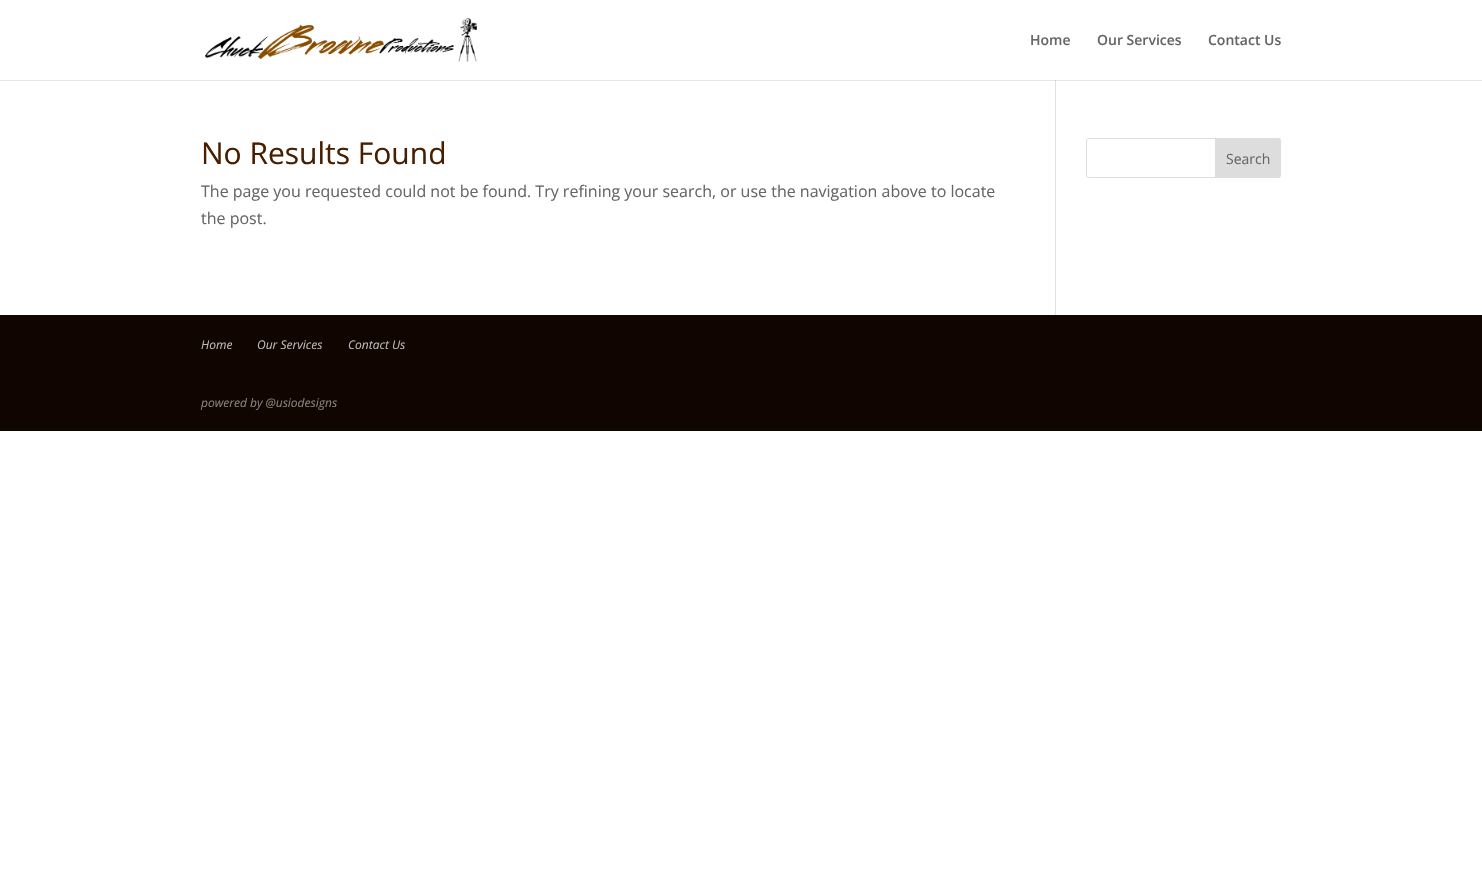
void draw(SkCanvas* canvas) {
    SkPaint paint;
    paint.setAntiAlias(true);
    canvas->clear(0xFFFFFFFF);
    paint.setColor(0xFFE6E6E6);
    canvas->drawRect(SkRect::MakeXYWH(0, 80, 1482, 1), paint);
    canvas->drawImageRect(SkImages::DeferredFromEncodedData(SkData::MakeFromFileName("img1.png")), SkRect::MakeXYWH(205, 18, 272, 44), SkSamplingOptions());
    SkFont font1(fontMgr->matchFamilyStyle("Open Sans", SkFontStyle(600, SkFontStyle::kNormal_Width, SkFontStyle::kUpright_Slant)), 14);
    font1.setSubpixel(true);
    paint.setColor(0xFF666666);
    canvas->drawString("Home", 1030, 45, font1, paint);
    canvas->drawString("Our Services", 1097, 45, font1, paint);
    canvas->drawString("Contact Us", 1208, 45, font1, paint);
    paint.setColor(0xFFE2E2E2);
    canvas->drawRect(SkRect::MakeXYWH(1055, 80, 1, 235), paint);
    paint.setColor(0xFFCBCBCB);
    canvas->drawRect(SkRect::MakeXYWH(1055, 80, 1, 1), paint);
    SkFont font2(fontMgr->matchFamilyStyle("Open Sans", SkFontStyle::Normal()), 30);
    font2.setSubpixel(true);
    paint.setColor(0xFF471F00);
    canvas->drawString("No Results Found", 201, 164, font2, paint);
    SkFont font3(fontMgr->matchFamilyStyle("Open Sans", SkFontStyle::Normal()), 16);
    font3.setSubpixel(true);
    paint.setColor(0xFF666666);
    canvas->drawString("The page you requested could not be found. Try refining your search, or use the navigation above to locate", 201, 197, font3, paint);
    canvas->drawString("the post.", 201, 224, font3, paint);
    paint.setStyle(SkPaint::kStroke_Style);
    paint.setStrokeWidth(1);
    paint.setColor(0xFFDDDDDD);
    canvas->drawRoundRect(SkRect::MakeXYWH(1086.5f, 138.5f, 194, 39), 2.5f, 2.5f, paint);
    paint.setStyle(SkPaint::kFill_Style);
    canvas->drawPath(SkPathBuilder().moveTo(1215.5f, 138.5f).lineTo(1278, 138.5f).cubicTo(1279.5f, 138.5f, 1280.5f, 139.5f, 1280.5f, 141).lineTo(1280.5f, 175).cubicTo(1280.5f, 176.5f, 1279.5f, 177.5f, 1278, 177.5f).lineTo(1215.5f, 177.5f).close().detach(), paint);
    paint.setStyle(SkPaint::kStroke_Style);
    canvas->drawPath(SkPathBuilder().moveTo(1215.5f, 138.5f).lineTo(1278, 138.5f).cubicTo(1279.5f, 138.5f, 1280.5f, 139.5f, 1280.5f, 141).lineTo(1280.5f, 175).cubicTo(1280.5f, 176.5f, 1279.5f, 177.5f, 1278, 177.5f).lineTo(1215.5f, 177.5f).close().detach(), paint);
    SkFont font4(fontMgr->matchFamilyStyle("Open Sans", SkFontStyle::Normal()), 14);
    font4.setSubpixel(true);
    paint.setStyle(SkPaint::kFill_Style);
    paint.setColor(0xFF666666);
    canvas->drawString("Search", 1226, 164, font4, paint);
    paint.setColor(0xFF110500);
    canvas->drawRect(SkRect::MakeXYWH(0, 315, 1482, 116), paint);
    SkFont font5(fontMgr->matchFamilyStyle("Open Sans", SkFontStyle::Italic()), 12);
    font5.setSubpixel(true);
    paint.setColor(0xFFBBBBBB);
    canvas->drawString("Home", 201, 349, font5, paint);
    canvas->drawString("Our Services", 257, 349, font5, paint);
    canvas->drawString("Contact Us", 348, 349, font5, paint);
    paint.setColor(0xFF888280);
    canvas->drawString("powered by @usiodesigns", 201, 407, font5, paint);
}
